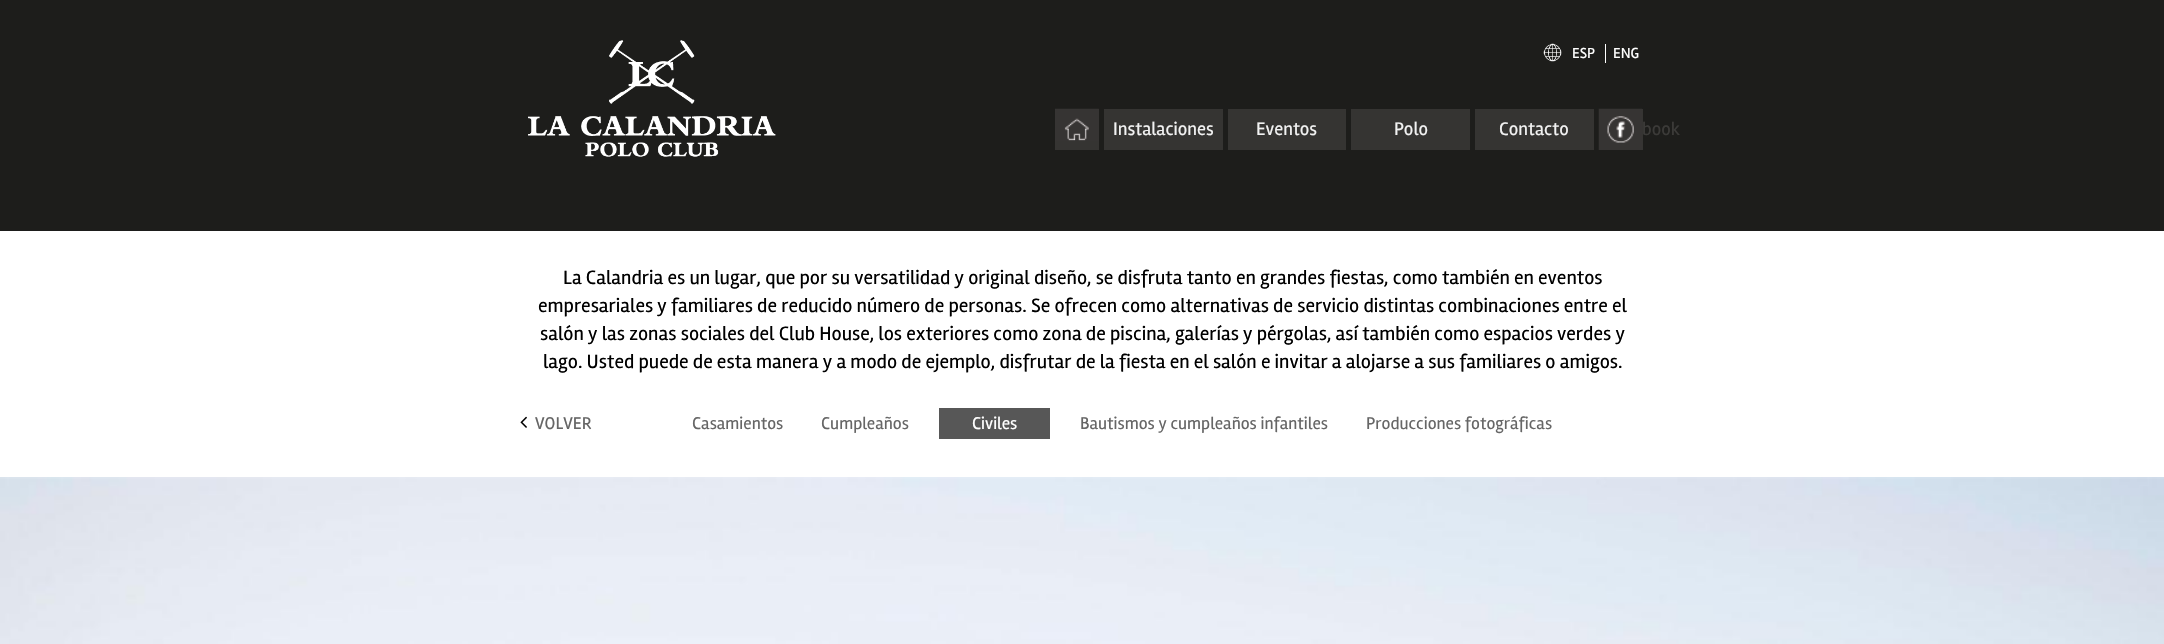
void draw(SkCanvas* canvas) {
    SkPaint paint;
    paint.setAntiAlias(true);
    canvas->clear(0xFFFFFFFF);
    paint.setColor(0xFF1D1D1B);
    canvas->drawRect(SkRect::MakeXYWH(0, 0, 2164, 231), paint);
    canvas->drawImageRect(SkImages::DeferredFromEncodedData(SkData::MakeFromFileName("img1.png")), SkRect::MakeXYWH(1543, 43, 19, 19), SkSamplingOptions());
    SkFont font1(fontMgr->matchFamilyStyle("Rambla", SkFontStyle::Normal()), 15);
    font1.setSubpixel(true);
    paint.setColor(0xFFFFFFFF);
    canvas->drawString("ESP", 1572, 58, font1, paint);
    canvas->drawString("ENG", 1613, 58, font1, paint);
    canvas->drawRect(SkRect::MakeXYWH(1605, 44, 1, 19), paint);
    canvas->drawImageRect(SkImages::DeferredFromEncodedData(SkData::MakeFromFileName("img2.png")), SkRect::MakeXYWH(528, 40, 248, 117), SkSamplingOptions());
    paint.setColor(0xFF353432);
    canvas->drawRect(SkRect::MakeXYWH(1055, 109, 44, 41), paint);
    canvas->drawImageRect(SkImages::DeferredFromEncodedData(SkData::MakeFromFileName("img3.png")), SkRect::MakeXYWH(1055, 108, 44, 33), SkSamplingOptions());
    canvas->drawRect(SkRect::MakeXYWH(1104, 109, 119, 41), paint);
    SkFont font2(fontMgr->matchFamilyStyle("Rambla", SkFontStyle::Normal()), 18.75f);
    font2.setSubpixel(true);
    paint.setColor(0xFFF2F2F2);
    canvas->drawString("Instalaciones", 1113, 135, font2, paint);
    paint.setColor(0xFF353432);
    canvas->drawRect(SkRect::MakeXYWH(1228, 109, 118, 41), paint);
    paint.setColor(0xFFF2F2F2);
    canvas->drawString("Eventos", 1256, 135, font2, paint);
    paint.setColor(0xFF353432);
    canvas->drawRect(SkRect::MakeXYWH(1351, 109, 119, 41), paint);
    paint.setColor(0xFFF2F2F2);
    canvas->drawString("Polo", 1394, 135, font2, paint);
    paint.setColor(0xFF353432);
    canvas->drawRect(SkRect::MakeXYWH(1475, 109, 119, 41), paint);
    paint.setColor(0xFFF2F2F2);
    canvas->drawString("Contacto", 1499, 135, font2, paint);
    paint.setColor(0xFF353432);
    canvas->drawRect(SkRect::MakeXYWH(1642, 109, 1, 41), paint);
    canvas->drawImageRect(SkImages::DeferredFromEncodedData(SkData::MakeFromFileName("img4.png")), SkRect::MakeXYWH(1598, 108, 44, 42), SkSamplingOptions());
    paint.setColor(0xFF3B3A38);
    canvas->drawString("book", 1642, 135, font2, paint);
    SkFont font3(fontMgr->matchFamilyStyle("Rambla", SkFontStyle::Normal()), 20);
    font3.setSubpixel(true);
    paint.setColor(0xFF000000);
    canvas->drawString("La Calandria es un lugar, que por su versatilidad y original diseño, se disfruta tanto en grandes fiestas, como también en eventos", 563, 284, font3, paint);
    canvas->drawString("empresariales y familiares de reducido número de personas. Se ofrecen como alternativas de servicio distintas combinaciones entre el", 538, 312, font3, paint);
    canvas->drawString("salón y las zonas sociales del Club House, los exteriores como zona de piscina, galerías y pérgolas, así también como espacios verdes y", 540, 340, font3, paint);
    canvas->drawString("lago. Usted puede de esta manera y a modo de ejemplo, disfrutar de la fiesta en el salón e invitar a alojarse a sus familiares o amigos.", 543, 368, font3, paint);
    canvas->drawImageRect(SkImages::DeferredFromEncodedData(SkData::MakeFromFileName("img5.png")), SkRect::MakeXYWH(520, 416, 7, 12), SkSamplingOptions());
    SkFont font4(fontMgr->matchFamilyStyle("Rambla", SkFontStyle::Normal()), 17.5f);
    font4.setSubpixel(true);
    paint.setColor(0xFF666666);
    canvas->drawString("VOLVER", 535, 429, font4, paint);
    canvas->drawString("Casamientos", 692, 429, font4, paint);
    canvas->drawString("Cumpleaños", 821, 429, font4, paint);
    paint.setColor(0xFF575757);
    canvas->drawRect(SkRect::MakeXYWH(939, 408, 111, 31), paint);
    paint.setColor(0xFFFFFFFF);
    canvas->drawString("Civiles", 972, 429, font4, paint);
    paint.setColor(0xFF666666);
    canvas->drawString("Bautismos y cumpleaños infantiles", 1080, 429, font4, paint);
    canvas->drawString("Producciones fotográficas", 1366, 429, font4, paint);
    canvas->drawImageRect(SkImages::DeferredFromEncodedData(SkData::MakeFromFileName("img6.png")), SkRect::MakeXYWH(0, 477, 2164, 167), SkSamplingOptions());
}
